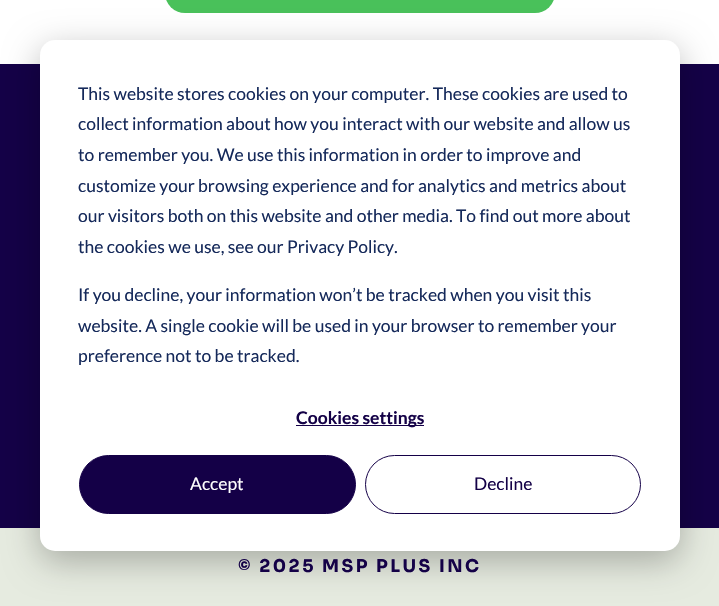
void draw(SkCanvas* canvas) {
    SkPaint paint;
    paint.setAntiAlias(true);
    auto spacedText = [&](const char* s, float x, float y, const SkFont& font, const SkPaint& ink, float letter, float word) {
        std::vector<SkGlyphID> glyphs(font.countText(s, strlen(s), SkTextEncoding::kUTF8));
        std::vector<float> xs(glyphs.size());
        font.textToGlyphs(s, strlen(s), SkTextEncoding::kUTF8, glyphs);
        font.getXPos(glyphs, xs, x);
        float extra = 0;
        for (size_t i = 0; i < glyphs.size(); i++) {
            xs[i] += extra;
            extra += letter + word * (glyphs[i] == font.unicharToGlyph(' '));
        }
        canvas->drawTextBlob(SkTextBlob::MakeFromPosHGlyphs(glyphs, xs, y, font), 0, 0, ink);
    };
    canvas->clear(0xFFFFFFFF);
    paint.setColor(0xFF49C15A);
    canvas->drawRoundRect(SkRect::MakeXYWH(165, -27, 390, 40), 26.5f, 26.5f, paint);
    paint.setColor(0xFF140147);
    canvas->drawRect(SkRect::MakeXYWH(0, 64, 719, 464), paint);
    paint.setColor(0xFFE6EBE0);
    canvas->drawRect(SkRect::MakeXYWH(0, 528, 719, 78), paint);
    paint.setColor(0x47000000);
    paint.setMaskFilter(SkMaskFilter::MakeBlur(kNormal_SkBlurStyle, 17.5f));
    canvas->drawRoundRect(SkRect::MakeXYWH(40, 50, 640, 511), 15, 15, paint);
    paint.setMaskFilter(nullptr);
    paint.setColor(0xFFFFFFFF);
    canvas->drawRoundRect(SkRect::MakeXYWH(40, 40, 640, 511), 15, 15, paint);
    SkFont font1(fontMgr->matchFamilyStyle("Lato", SkFontStyle::Normal()), 17.5f);
    font1.setSubpixel(true);
    paint.setColor(0xFF15295A);
    canvas->drawString("This website stores cookies on your computer. These cookies are used to", 78, 100, font1, paint);
    canvas->drawString("collect information about how you interact with our website and allow us", 78, 130, font1, paint);
    canvas->drawString("to remember you. We use this information in order to improve and", 78, 161, font1, paint);
    canvas->drawString("customize your browsing experience and for analytics and metrics about", 78, 192, font1, paint);
    canvas->drawString("our visitors both on this website and other media. To find out more about", 78, 222, font1, paint);
    canvas->drawString("the cookies we use, see our Privacy Policy.", 78, 253, font1, paint);
    canvas->drawString("If you decline, your information won’t be tracked when you visit this", 78, 301, font1, paint);
    canvas->drawString("website. A single cookie will be used in your browser to remember your", 78, 332, font1, paint);
    canvas->drawString("preference not to be tracked.", 78, 362, font1, paint);
    paint.setColor(0xFF140047);
    canvas->drawRect(SkRect::MakeXYWH(296, 425, 128, 1), paint);
    SkFont font2(fontMgr->matchFamilyStyle("Lato", SkFontStyle::Bold()), 17.5f);
    font2.setSubpixel(true);
    paint.setColor(0xFF140147);
    canvas->drawString("Cookies settings", 296, 424, font2, paint);
    paint.setColor(0xFF140047);
    canvas->drawRoundRect(SkRect::MakeXYWH(79.5f, 455.5f, 276, 58), 29, 29, paint);
    paint.setStyle(SkPaint::kStroke_Style);
    paint.setStrokeWidth(1);
    canvas->drawRoundRect(SkRect::MakeXYWH(79.5f, 455.5f, 276, 58), 29, 29, paint);
    paint.setStyle(SkPaint::kFill_Style);
    paint.setColor(0xFFFFFFFF);
    canvas->drawString("Accept", 190, 490, font1, paint);
    paint.setStyle(SkPaint::kStroke_Style);
    paint.setColor(0xFF140047);
    canvas->drawRoundRect(SkRect::MakeXYWH(365.5f, 455.5f, 275, 58), 29, 29, paint);
    paint.setStyle(SkPaint::kFill_Style);
    paint.setColor(0xFF140147);
    canvas->drawString("Decline", 474, 490, font1, paint);
    SkFont font3(fontMgr->matchFamilyStyle("Sora", SkFontStyle::Bold()), 17.5f);
    font3.setSubpixel(true);
    spacedText("© 2025 MSP PLUS INC", 238, 572, font3, paint, 2.5f, 0);
}
